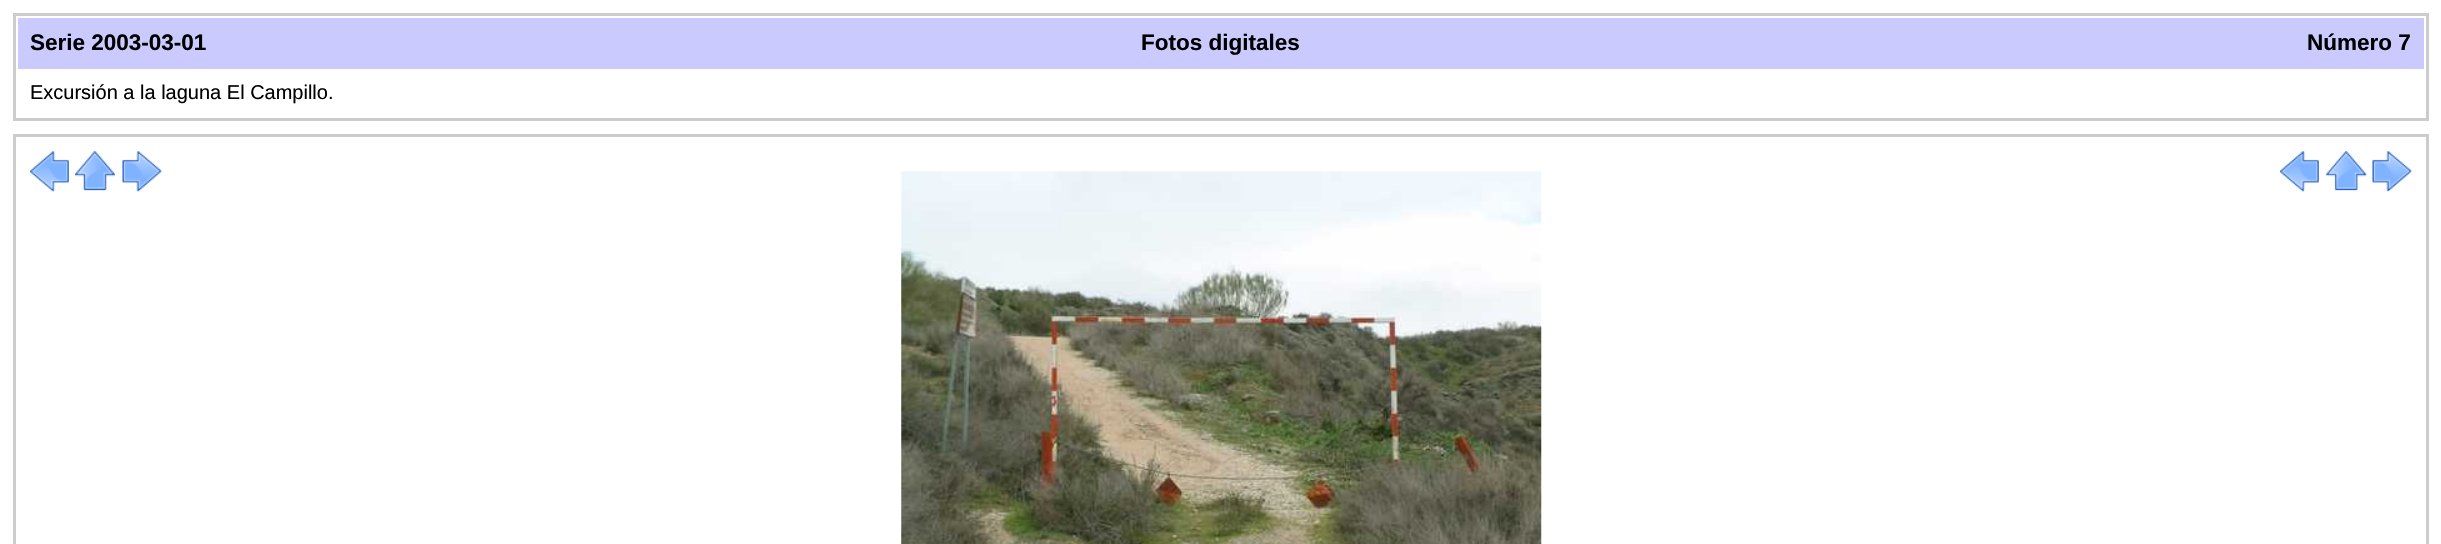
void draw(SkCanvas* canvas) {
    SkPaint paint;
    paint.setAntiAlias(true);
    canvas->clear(0xFFFFFFFF);
    paint.setStyle(SkPaint::kStroke_Style);
    paint.setStrokeWidth(3);
    paint.setColor(0xFFCCCCCC);
    canvas->drawRect(SkRect::MakeXYWH(14.5f, 14.5f, 2413, 105), paint);
    paint.setStyle(SkPaint::kFill_Style);
    paint.setColor(0xFFCACAFF);
    canvas->drawRect(SkRect::MakeXYWH(18, 18, 2406, 51), paint);
    SkFont font1(fontMgr->matchFamilyStyle("Liberation Sans", SkFontStyle::Bold()), 22.5f);
    font1.setSubpixel(true);
    paint.setColor(0xFF000000);
    canvas->drawString("Serie 2003-03-01", 30, 50, font1, paint);
    canvas->drawString("Fotos digitales", 1141, 50, font1, paint);
    canvas->drawString("Número 7", 2307, 50, font1, paint);
    SkFont font2(fontMgr->matchFamilyStyle("Liberation Sans", SkFontStyle::Normal()), 20);
    font2.setSubpixel(true);
    canvas->drawString("Excursión a la laguna El Campillo.", 30, 99, font2, paint);
    paint.setStyle(SkPaint::kStroke_Style);
    paint.setColor(0xFFCCCCCC);
    canvas->drawRect(SkRect::MakeXYWH(14.5f, 135.5f, 2413, 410), paint);
    canvas->drawImageRect(SkImages::DeferredFromEncodedData(SkData::MakeFromFileName("img1.png")), SkRect::MakeXYWH(30, 151, 39, 41), SkSamplingOptions());
    canvas->drawImageRect(SkImages::DeferredFromEncodedData(SkData::MakeFromFileName("img2.png")), SkRect::MakeXYWH(75, 151, 40, 40), SkSamplingOptions());
    canvas->drawImageRect(SkImages::DeferredFromEncodedData(SkData::MakeFromFileName("img3.png")), SkRect::MakeXYWH(122, 151, 40, 41), SkSamplingOptions());
    canvas->drawImageRect(SkImages::DeferredFromEncodedData(SkData::MakeFromFileName("img4.png")), SkRect::MakeXYWH(901, 171, 641, 373), SkSamplingOptions());
    canvas->drawImageRect(SkImages::DeferredFromEncodedData(SkData::MakeFromFileName("img5.png")), SkRect::MakeXYWH(2280, 151, 39, 41), SkSamplingOptions());
    canvas->drawImageRect(SkImages::DeferredFromEncodedData(SkData::MakeFromFileName("img6.png")), SkRect::MakeXYWH(2326, 151, 41, 40), SkSamplingOptions());
    canvas->drawImageRect(SkImages::DeferredFromEncodedData(SkData::MakeFromFileName("img3.png")), SkRect::MakeXYWH(2372, 151, 40, 41), SkSamplingOptions());
}
